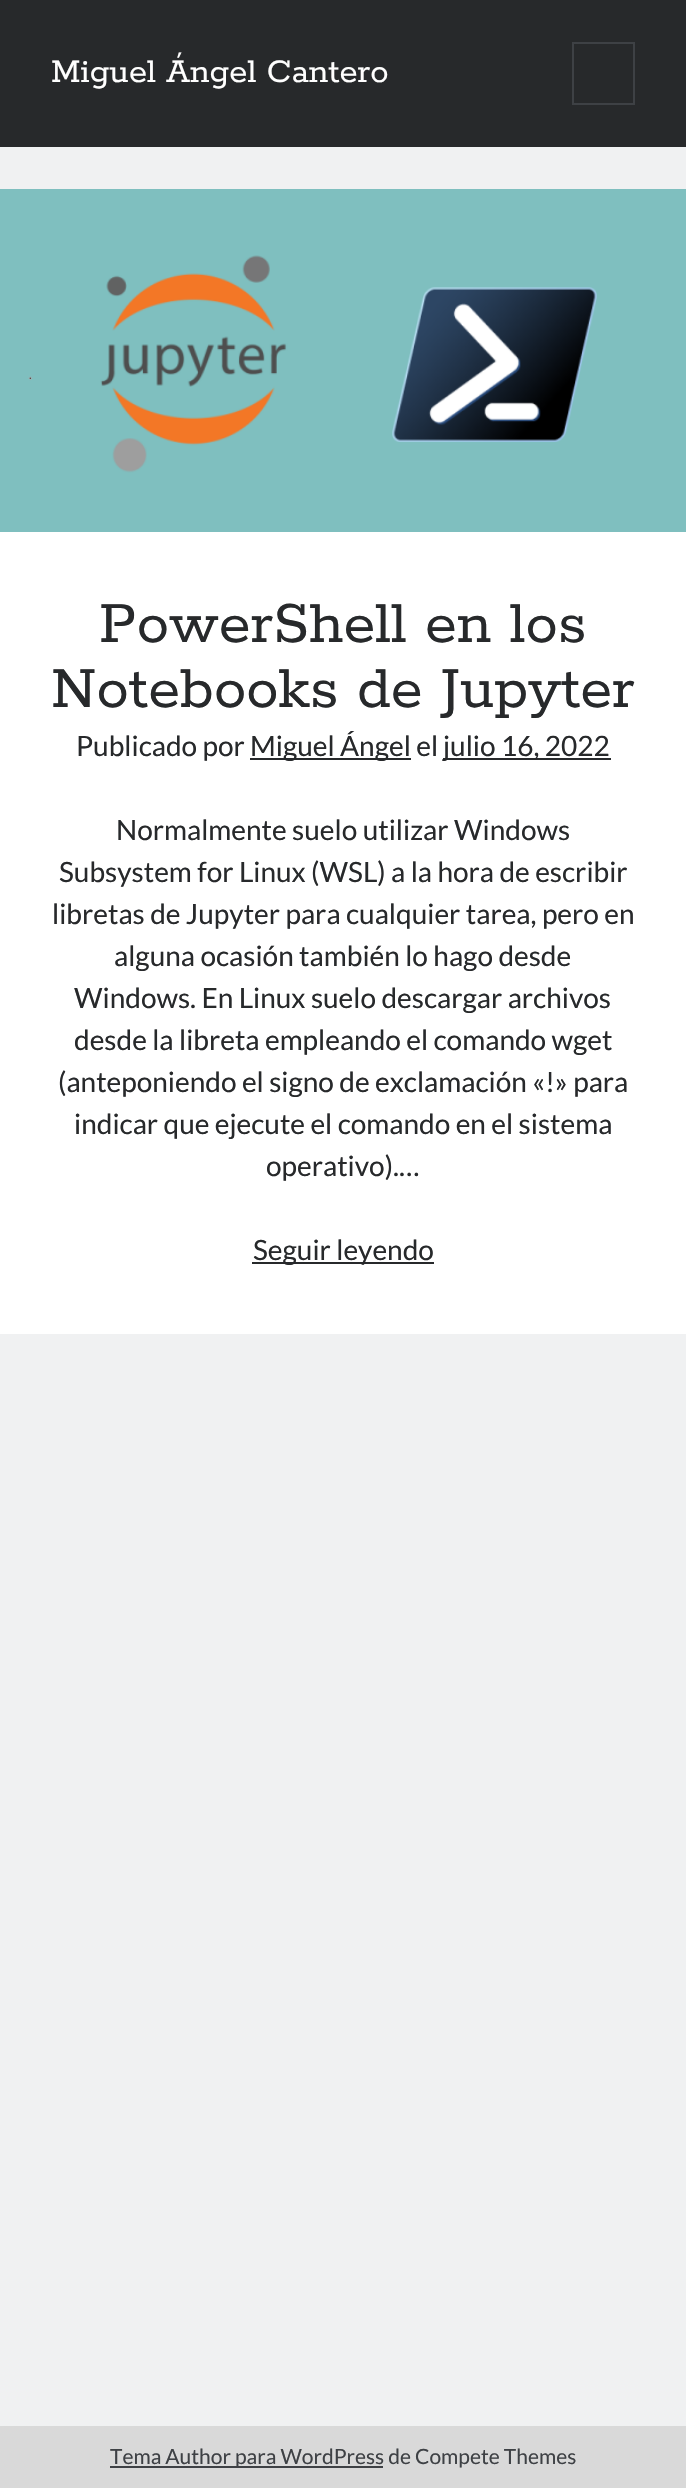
void draw(SkCanvas* canvas) {
    SkPaint paint;
    paint.setAntiAlias(true);
    canvas->clear(0xFF27292B);
    SkFont font1(fontMgr->matchFamilyStyle("Rokkitt", SkFontStyle::Normal()), 36.75f);
    font1.setSubpixel(true);
    paint.setColor(0xFFFFFFFF);
    canvas->drawString("Miguel Ángel Cantero", 51, 82, font1, paint);
    paint.setStyle(SkPaint::kStroke_Style);
    paint.setStrokeWidth(2);
    paint.setColor(0xFF3E4145);
    canvas->drawRect(SkRect::MakeXYWH(573, 43, 61, 61), paint);
    paint.setStyle(SkPaint::kFill_Style);
    paint.setColor(0xFFF0F1F2);
    canvas->drawRect(SkRect::MakeXYWH(0, 147, 686, 2279), paint);
    canvas->drawImageRect(SkImages::DeferredFromEncodedData(SkData::MakeFromFileName("img1.png")), SkRect::MakeXYWH(0, 189, 686, 343), SkSamplingOptions());
    paint.setColor(0xFFFFFFFF);
    canvas->drawRect(SkRect::MakeXYWH(0, 532, 686, 802), paint);
    SkFont font2(fontMgr->matchFamilyStyle("Rokkitt", SkFontStyle::Normal()), 64.75f);
    font2.setSubpixel(true);
    paint.setColor(0xFF27292B);
    canvas->drawString("PowerShell en los", 99, 642, font2, paint);
    canvas->drawString("Notebooks de Jupyter", 51, 707, font2, paint);
    SkFont font3(fontMgr->matchFamilyStyle("Lato", SkFontStyle::Normal()), 28);
    font3.setSubpixel(true);
    canvas->drawString("Publicado por", 76, 756, font3, paint);
    canvas->drawRect(SkRect::MakeXYWH(250, 758, 161, 2), paint);
    canvas->drawString("Miguel Ángel el", 250, 756, font3, paint);
    canvas->drawRect(SkRect::MakeXYWH(443, 758, 168, 2), paint);
    canvas->drawString("julio 16, 2022", 443, 756, font3, paint);
    canvas->drawString("Normalmente suelo utilizar Windows", 116, 840, font3, paint);
    canvas->drawString("Subsystem for Linux (WSL) a la hora de escribir", 59, 882, font3, paint);
    canvas->drawString("libretas de Jupyter para cualquier tarea, pero en", 52, 924, font3, paint);
    canvas->drawString("alguna ocasión también lo hago desde", 114, 966, font3, paint);
    canvas->drawString("Windows. En Linux suelo descargar archivos", 74, 1008, font3, paint);
    canvas->drawString("desde la libreta empleando el comando wget", 74, 1050, font3, paint);
    canvas->drawString("(anteponiendo el signo de exclamación «!» para", 58, 1092, font3, paint);
    canvas->drawString("indicar que ejecute el comando en el sistema", 74, 1134, font3, paint);
    canvas->drawString("operativo).…", 266, 1176, font3, paint);
    canvas->drawRect(SkRect::MakeXYWH(252, 1262, 182, 2), paint);
    canvas->drawString("Seguir leyendo", 253, 1260, font3, paint);
    paint.setColor(0xFFD9D9D9);
    canvas->drawRect(SkRect::MakeXYWH(0, 2426, 686, 62), paint);
    paint.setColor(0xFF3E4145);
    canvas->drawRect(SkRect::MakeXYWH(110, 2466, 273, 2), paint);
    SkFont font4(fontMgr->matchFamilyStyle("Lato", SkFontStyle::Normal()), 21);
    font4.setSubpixel(true);
    canvas->drawString("Tema Author para WordPress de Compete Themes", 110, 2464, font4, paint);
}
